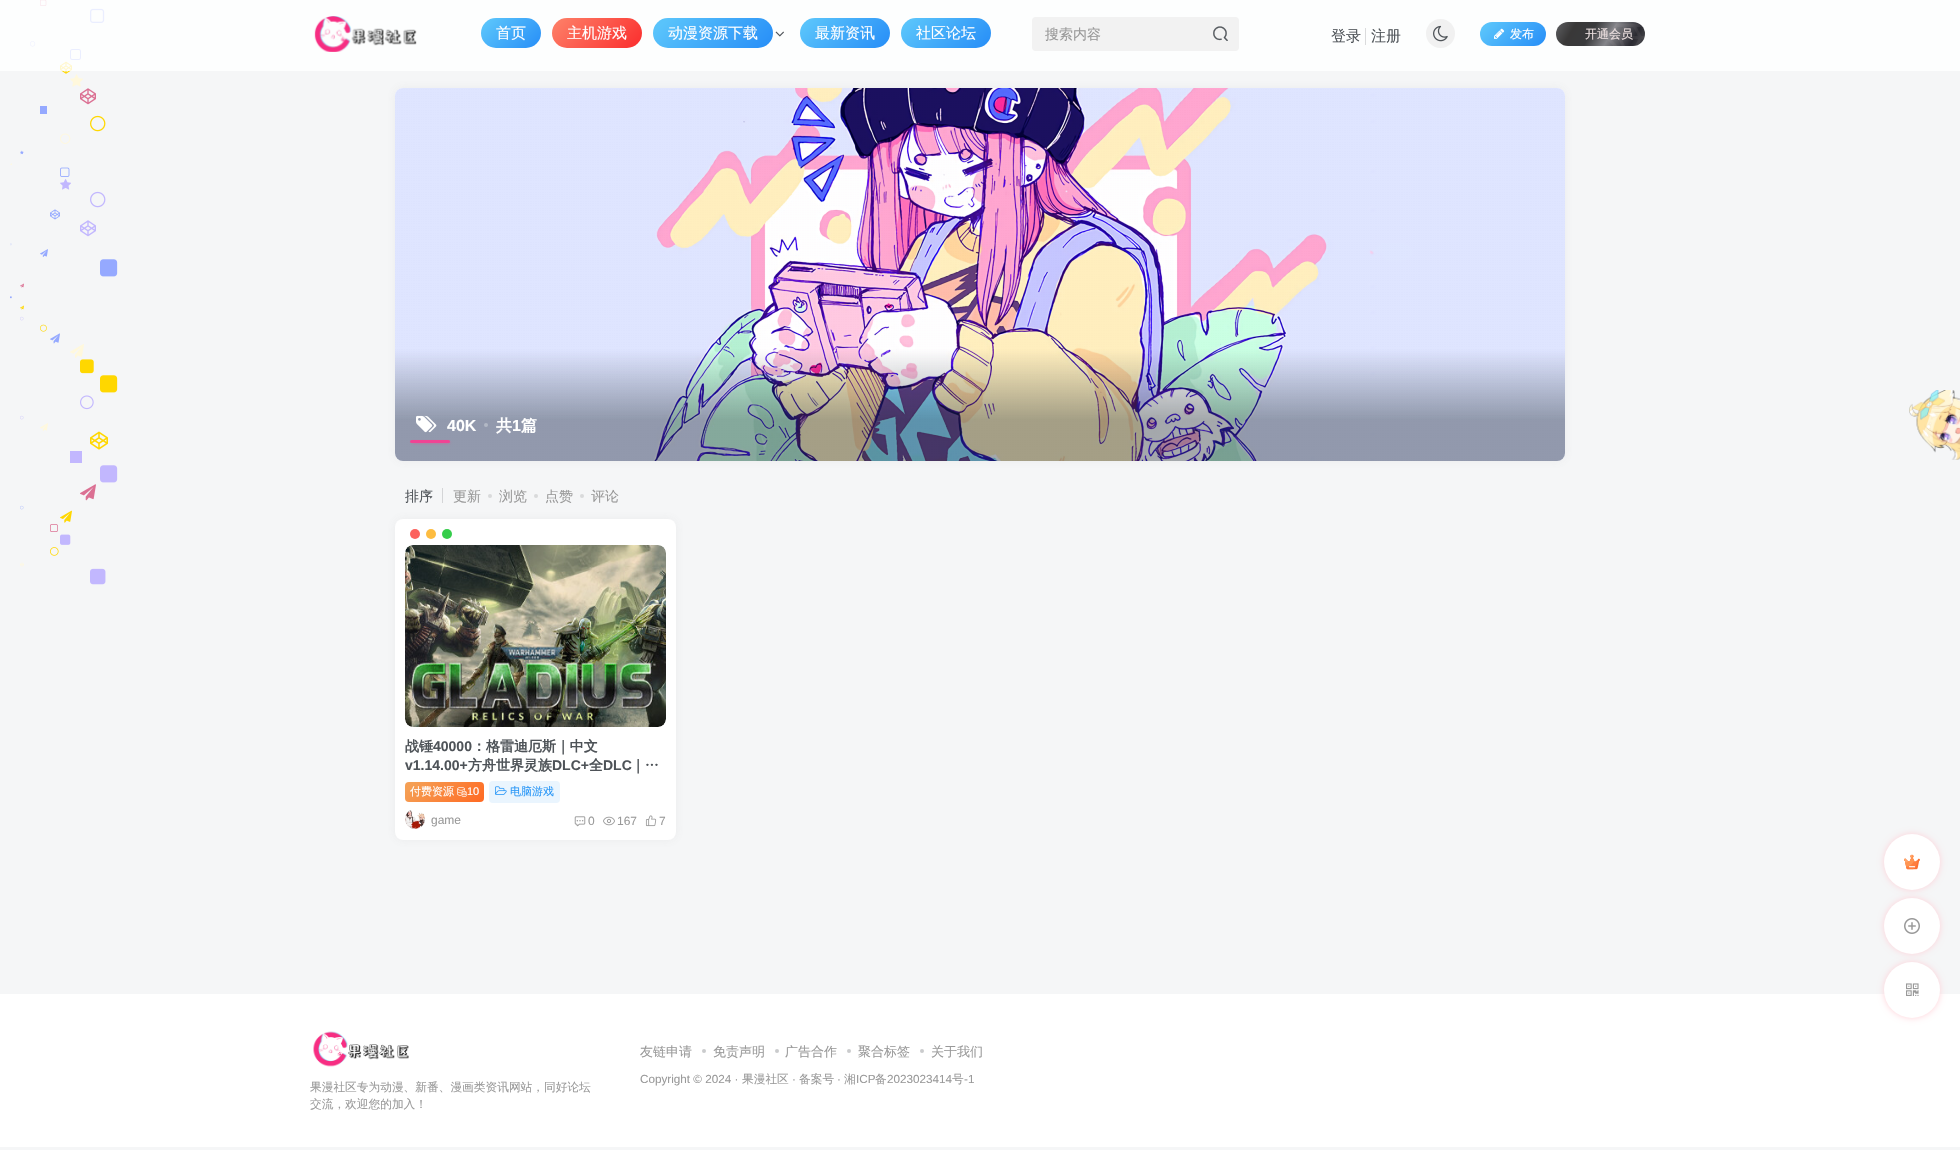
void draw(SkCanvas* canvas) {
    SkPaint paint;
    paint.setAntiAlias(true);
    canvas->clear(0xFFF5F6F7);
    canvas->drawImageRect(SkImages::DeferredFromEncodedData(SkData::MakeFromFileName("img1.png")), SkRect::MakeXYWH(40, 0, 7, 6), SkSamplingOptions());
    canvas->drawImageRect(SkImages::DeferredFromEncodedData(SkData::MakeFromFileName("img2.png")), SkRect::MakeXYWH(90, 8, 15, 15), SkSamplingOptions());
    canvas->drawImageRect(SkImages::DeferredFromEncodedData(SkData::MakeFromFileName("img3.png")), SkRect::MakeXYWH(30, 41, 6, 6), SkSamplingOptions());
    canvas->drawImageRect(SkImages::DeferredFromEncodedData(SkData::MakeFromFileName("img4.png")), SkRect::MakeXYWH(70, 49, 11, 11), SkSamplingOptions());
    canvas->drawImageRect(SkImages::DeferredFromEncodedData(SkData::MakeFromFileName("img5.png")), SkRect::MakeXYWH(60, 61, 12, 13), SkSamplingOptions());
    canvas->drawImageRect(SkImages::DeferredFromEncodedData(SkData::MakeFromFileName("img6.png")), SkRect::MakeXYWH(70, 74, 13, 13), SkSamplingOptions());
    canvas->drawImageRect(SkImages::DeferredFromEncodedData(SkData::MakeFromFileName("img7.png")), SkRect::MakeXYWH(80, 88, 16, 17), SkSamplingOptions());
    paint.setColor(0xFF95A9FF);
    canvas->drawRect(SkRect::MakeXYWH(40, 106, 7, 8), paint);
    canvas->drawImageRect(SkImages::DeferredFromEncodedData(SkData::MakeFromFileName("img8.png")), SkRect::MakeXYWH(90, 115, 16, 17), SkSamplingOptions());
    canvas->drawImageRect(SkImages::DeferredFromEncodedData(SkData::MakeFromFileName("img9.png")), SkRect::MakeXYWH(60, 133, 11, 11), SkSamplingOptions());
    canvas->drawImageRect(SkImages::DeferredFromEncodedData(SkData::MakeFromFileName("img10.png")), SkRect::MakeXYWH(20, 150, 4, 5), SkSamplingOptions());
    canvas->drawImageRect(SkImages::DeferredFromEncodedData(SkData::MakeFromFileName("img11.png")), SkRect::MakeXYWH(10, 163, 2, 2), SkSamplingOptions());
    canvas->drawImageRect(SkImages::DeferredFromEncodedData(SkData::MakeFromFileName("img12.png")), SkRect::MakeXYWH(60, 167, 10, 10), SkSamplingOptions());
    canvas->drawImageRect(SkImages::DeferredFromEncodedData(SkData::MakeFromFileName("img13.png")), SkRect::MakeXYWH(60, 179, 11, 11), SkSamplingOptions());
    canvas->drawImageRect(SkImages::DeferredFromEncodedData(SkData::MakeFromFileName("img14.png")), SkRect::MakeXYWH(90, 191, 16, 17), SkSamplingOptions());
    canvas->drawImageRect(SkImages::DeferredFromEncodedData(SkData::MakeFromFileName("img15.png")), SkRect::MakeXYWH(50, 209, 10, 11), SkSamplingOptions());
    canvas->drawImageRect(SkImages::DeferredFromEncodedData(SkData::MakeFromFileName("img16.png")), SkRect::MakeXYWH(80, 220, 16, 17), SkSamplingOptions());
    canvas->drawImageRect(SkImages::DeferredFromEncodedData(SkData::MakeFromFileName("img17.png")), SkRect::MakeXYWH(10, 243, 2, 3), SkSamplingOptions());
    canvas->drawImageRect(SkImages::DeferredFromEncodedData(SkData::MakeFromFileName("img18.png")), SkRect::MakeXYWH(40, 249, 8, 8), SkSamplingOptions());
    canvas->drawImageRect(SkImages::DeferredFromEncodedData(SkData::MakeFromFileName("img19.png")), SkRect::MakeXYWH(100, 259, 18, 18), SkSamplingOptions());
    canvas->drawImageRect(SkImages::DeferredFromEncodedData(SkData::MakeFromFileName("img20.png")), SkRect::MakeXYWH(20, 283, 4, 5), SkSamplingOptions());
    canvas->drawImageRect(SkImages::DeferredFromEncodedData(SkData::MakeFromFileName("img21.png")), SkRect::MakeXYWH(10, 296, 2, 3), SkSamplingOptions());
    canvas->drawImageRect(SkImages::DeferredFromEncodedData(SkData::MakeFromFileName("img22.png")), SkRect::MakeXYWH(20, 305, 4, 5), SkSamplingOptions());
    canvas->drawImageRect(SkImages::DeferredFromEncodedData(SkData::MakeFromFileName("img23.png")), SkRect::MakeXYWH(20, 316, 4, 5), SkSamplingOptions());
    canvas->drawImageRect(SkImages::DeferredFromEncodedData(SkData::MakeFromFileName("img24.png")), SkRect::MakeXYWH(40, 324, 7, 8), SkSamplingOptions());
    canvas->drawImageRect(SkImages::DeferredFromEncodedData(SkData::MakeFromFileName("img25.png")), SkRect::MakeXYWH(50, 333, 10, 11), SkSamplingOptions());
    canvas->drawImageRect(SkImages::DeferredFromEncodedData(SkData::MakeFromFileName("img26.png")), SkRect::MakeXYWH(70, 344, 14, 14), SkSamplingOptions());
    canvas->drawImageRect(SkImages::DeferredFromEncodedData(SkData::MakeFromFileName("img27.png")), SkRect::MakeXYWH(80, 359, 14, 15), SkSamplingOptions());
    canvas->drawImageRect(SkImages::DeferredFromEncodedData(SkData::MakeFromFileName("img28.png")), SkRect::MakeXYWH(100, 375, 18, 18), SkSamplingOptions());
    canvas->drawImageRect(SkImages::DeferredFromEncodedData(SkData::MakeFromFileName("img29.png")), SkRect::MakeXYWH(80, 395, 14, 15), SkSamplingOptions());
    canvas->drawImageRect(SkImages::DeferredFromEncodedData(SkData::MakeFromFileName("img23.png")), SkRect::MakeXYWH(20, 415, 4, 5), SkSamplingOptions());
    canvas->drawImageRect(SkImages::DeferredFromEncodedData(SkData::MakeFromFileName("img30.png")), SkRect::MakeXYWH(40, 423, 8, 8), SkSamplingOptions());
    canvas->drawImageRect(SkImages::DeferredFromEncodedData(SkData::MakeFromFileName("img31.png")), SkRect::MakeXYWH(90, 431, 18, 19), SkSamplingOptions());
    paint.setColor(0xFFC2B7FE);
    canvas->drawRect(SkRect::MakeXYWH(70, 451, 12, 12), paint);
    canvas->drawImageRect(SkImages::DeferredFromEncodedData(SkData::MakeFromFileName("img32.png")), SkRect::MakeXYWH(100, 465, 18, 18), SkSamplingOptions());
    canvas->drawImageRect(SkImages::DeferredFromEncodedData(SkData::MakeFromFileName("img33.png")), SkRect::MakeXYWH(80, 484, 16, 17), SkSamplingOptions());
    canvas->drawImageRect(SkImages::DeferredFromEncodedData(SkData::MakeFromFileName("img34.png")), SkRect::MakeXYWH(20, 505, 4, 5), SkSamplingOptions());
    canvas->drawImageRect(SkImages::DeferredFromEncodedData(SkData::MakeFromFileName("img35.png")), SkRect::MakeXYWH(60, 510, 12, 13), SkSamplingOptions());
    canvas->drawImageRect(SkImages::DeferredFromEncodedData(SkData::MakeFromFileName("img36.png")), SkRect::MakeXYWH(50, 524, 8, 8), SkSamplingOptions());
    canvas->drawImageRect(SkImages::DeferredFromEncodedData(SkData::MakeFromFileName("img37.png")), SkRect::MakeXYWH(60, 534, 11, 11), SkSamplingOptions());
    canvas->drawImageRect(SkImages::DeferredFromEncodedData(SkData::MakeFromFileName("img38.png")), SkRect::MakeXYWH(50, 547, 9, 9), SkSamplingOptions());
    canvas->drawImageRect(SkImages::DeferredFromEncodedData(SkData::MakeFromFileName("img39.png")), SkRect::MakeXYWH(20, 562, 4, 5), SkSamplingOptions());
    canvas->drawImageRect(SkImages::DeferredFromEncodedData(SkData::MakeFromFileName("img40.png")), SkRect::MakeXYWH(90, 568, 16, 17), SkSamplingOptions());
    paint.setColor(0xCCFFFFFF);
    canvas->drawRect(SkRect::MakeXYWH(0, 0, 1960, 71), paint);
    canvas->drawImageRect(SkImages::DeferredFromEncodedData(SkData::MakeFromFileName("img41.png")), SkRect::MakeXYWH(314, 16, 103, 36), SkSamplingOptions());
    {
        const SkColor colors[] = {0xFF59C3FB, 0xFF268DF7};
        const float stops[] = {0.1f, 1};
        const SkPoint ends[] = {{489, 11}, {534, 56}};
        paint.setShader(SkGradientShader::MakeLinear(ends, colors, stops, 2, SkTileMode::kClamp));
        paint.setAlpha(255);
    }
    canvas->drawRoundRect(SkRect::MakeXYWH(481, 18, 60, 30), 15, 15, paint);
    SkFont font1(fontMgr->matchFamilyStyle("WenQuanYi Zen Hei", SkFontStyle(500, SkFontStyle::kNormal_Width, SkFontStyle::kUpright_Slant)), 15);
    font1.setSubpixel(true);
    paint.setShader(nullptr);
    paint.setColor(0xFFFFFFFF);
    canvas->drawString("首页", 496, 38, font1, paint);
    {
        const SkColor colors[] = {0xFFFD7A64, 0xFFFB2D2D};
        const float stops[] = {0.1f, 1};
        const SkPoint ends[] = {{567, 3}, {627, 63}};
        paint.setShader(SkGradientShader::MakeLinear(ends, colors, stops, 2, SkTileMode::kClamp));
        paint.setAlpha(255);
    }
    canvas->drawRoundRect(SkRect::MakeXYWH(552, 18, 90, 30), 15, 15, paint);
    paint.setShader(nullptr);
    paint.setColor(0xFFFFFFFF);
    canvas->drawString("主机游戏", 567, 38, font1, paint);
    {
        const SkColor colors[] = {0xFF59C3FB, 0xFF268DF7};
        const float stops[] = {0.1f, 1};
        const SkPoint ends[] = {{676, -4.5f}, {751, 71}};
        paint.setShader(SkGradientShader::MakeLinear(ends, colors, stops, 2, SkTileMode::kClamp));
        paint.setAlpha(255);
    }
    canvas->drawRoundRect(SkRect::MakeXYWH(653, 18, 120, 30), 15, 15, paint);
    paint.setShader(nullptr);
    paint.setColor(0xFFFFFFFF);
    canvas->drawString("动漫资源下载", 668, 38, font1, paint);
    canvas->drawImageRect(SkImages::DeferredFromEncodedData(SkData::MakeFromFileName("img42.png")), SkRect::MakeXYWH(775, 31, 9, 6), SkSamplingOptions());
    {
        const SkColor colors[] = {0xFF59C3FB, 0xFF268DF7};
        const float stops[] = {0.1f, 1};
        const SkPoint ends[] = {{815, 3}, {875, 63}};
        paint.setShader(SkGradientShader::MakeLinear(ends, colors, stops, 2, SkTileMode::kClamp));
        paint.setAlpha(255);
    }
    canvas->drawRoundRect(SkRect::MakeXYWH(800, 18, 90, 30), 15, 15, paint);
    paint.setShader(nullptr);
    paint.setColor(0xFFFFFFFF);
    canvas->drawString("最新资讯", 815, 38, font1, paint);
    {
        const SkColor colors[] = {0xFF59C3FB, 0xFF268DF7};
        const float stops[] = {0.1f, 1};
        const SkPoint ends[] = {{916, 3}, {976, 63}};
        paint.setShader(SkGradientShader::MakeLinear(ends, colors, stops, 2, SkTileMode::kClamp));
        paint.setAlpha(255);
    }
    canvas->drawRoundRect(SkRect::MakeXYWH(901, 18, 90, 30), 15, 15, paint);
    paint.setShader(nullptr);
    paint.setColor(0xFFFFFFFF);
    canvas->drawString("社区论坛", 916, 38, font1, paint);
    paint.setColor(0xFFF2F2F2);
    canvas->drawRoundRect(SkRect::MakeXYWH(1032, 17, 207, 34), 4, 4, paint);
    SkFont font2(fontMgr->matchFamilyStyle("WenQuanYi Zen Hei", SkFontStyle(500, SkFontStyle::kNormal_Width, SkFontStyle::kUpright_Slant)), 14);
    font2.setSubpixel(true);
    paint.setColor(0xFF999999);
    canvas->drawString("搜索内容", 1045, 39, font2, paint);
    canvas->drawImageRect(SkImages::DeferredFromEncodedData(SkData::MakeFromFileName("img43.png")), SkRect::MakeXYWH(1213, 26, 15, 15), SkSamplingOptions());
    paint.setColor(0xFF4E5358);
    canvas->drawString("登录", 1331, 41, font1, paint);
    paint.setColor(0xFFDADBDC);
    canvas->drawRect(SkRect::MakeXYWH(1365, 28, 1, 17), paint);
    paint.setColor(0xFF4E5358);
    canvas->drawString("注册", 1371, 41, font1, paint);
    paint.setColor(0xFFF1F1F1);
    canvas->drawCircle(1440.5f, 33.5f, 14.5f, paint);
    canvas->drawImageRect(SkImages::DeferredFromEncodedData(SkData::MakeFromFileName("img44.png")), SkRect::MakeXYWH(1433, 25, 15, 17), SkSamplingOptions());
    {
        const SkColor colors[] = {0xFF59C3FB, 0xFF268DF7};
        const float stops[] = {0.1f, 1};
        const SkPoint ends[] = {{1491, 12}, {1536, 57}};
        paint.setShader(SkGradientShader::MakeLinear(ends, colors, stops, 2, SkTileMode::kClamp));
        paint.setAlpha(255);
    }
    canvas->drawRoundRect(SkRect::MakeXYWH(1480, 22, 66, 24), 12, 12, paint);
    canvas->drawImageRect(SkImages::DeferredFromEncodedData(SkData::MakeFromFileName("img45.png")), SkRect::MakeXYWH(1494, 28, 11, 11), SkSamplingOptions());
    SkFont font3(fontMgr->matchFamilyStyle("WenQuanYi Zen Hei", SkFontStyle(500, SkFontStyle::kNormal_Width, SkFontStyle::kUpright_Slant)), 12);
    font3.setSubpixel(true);
    paint.setShader(nullptr);
    paint.setColor(0xFFFFFFFF);
    canvas->drawString("发布", 1510, 38, font3, paint);
    {
        const SkColor colors[] = {0xFF4C4D51, 0xFF2A2A31, 0xFF85858A, 0xFF393A3C, 0xFF393838, 0xFF5E5F62};
        const float stops[] = {0, 0.15f, 0.4f, 0.6f, 0.8f, 1};
        const SkPoint ends[] = {{1639, 56}, {1562, 12}};
        paint.setShader(SkGradientShader::MakeLinear(ends, colors, stops, 6, SkTileMode::kClamp));
        paint.setAlpha(255);
    }
    canvas->drawRoundRect(SkRect::MakeXYWH(1556, 22, 89, 24), 12, 12, paint);
    paint.setShader(nullptr);
    paint.setColor(0xFF4D4745);
    canvas->drawRect(SkRect::MakeXYWH(1568, 25, 1, 1), paint);
    paint.setColor(0xFFECE0E0);
    canvas->drawString("开通会员", 1585, 38, font3, paint);
    canvas->drawImageRect(SkImages::DeferredFromEncodedData(SkData::MakeFromFileName("img46.png")), SkRect::MakeXYWH(1606, 24, 39, 22), SkSamplingOptions());
    paint.setColor(0x14747474);
    paint.setMaskFilter(SkMaskFilter::MakeBlur(kNormal_SkBlurStyle, 5));
    canvas->drawRoundRect(SkRect::MakeXYWH(395, 88, 1170, 373), 8, 8, paint);
    paint.setMaskFilter(nullptr);
    paint.setColor(0xFFFFFFFF);
    canvas->drawRoundRect(SkRect::MakeXYWH(395, 88, 1170, 373), 8, 8, paint);
    canvas->drawImageRect(SkImages::DeferredFromEncodedData(SkData::MakeFromFileName("img47.png")), SkRect::MakeXYWH(395, 88, 1170, 373), SkSamplingOptions());
    {
        const SkColor colors[] = {0x661D2931, 0x001D2931};
        const float stops[] = {0.11f, 0.3f};
        const SkPoint ends[] = {{980, 461}, {980, 88}};
        paint.setShader(SkGradientShader::MakeLinear(ends, colors, stops, 2, SkTileMode::kClamp));
        paint.setAlpha(255);
    }
    canvas->drawRoundRect(SkRect::MakeXYWH(395, 88, 1170, 373), 8, 8, paint);
    canvas->drawImageRect(SkImages::DeferredFromEncodedData(SkData::MakeFromFileName("img48.png")), SkRect::MakeXYWH(416, 415, 21, 18), SkSamplingOptions());
    SkFont font4(fontMgr->matchFamilyStyle("Liberation Sans", SkFontStyle::Bold()), 16);
    font4.setSubpixel(true);
    paint.setShader(nullptr);
    paint.setColor(0xFFFFFFFF);
    canvas->drawString("40K", 447, 431, font4, paint);
    paint.setColor(0xFFB2B8C5);
    canvas->drawCircle(486, 425, 2, paint);
    SkFont font5(fontMgr->matchFamilyStyle("WenQuanYi Zen Hei", SkFontStyle::Bold()), 16);
    font5.setSubpixel(true);
    paint.setColor(0xFFFFFFFF);
    canvas->drawString("共", 496, 431, font5, paint);
    canvas->drawString("1", 512, 431, font4, paint);
    canvas->drawString("篇", 521, 431, font5, paint);
    paint.setColor(0xFFF04494);
    paint.setMaskFilter(SkMaskFilter::MakeBlur(kNormal_SkBlurStyle, 1.5f));
    canvas->drawRoundRect(SkRect::MakeXYWH(412, 442, 38, 1), 0.5f, 0.5f, paint);
    paint.setMaskFilter(nullptr);
    canvas->drawRoundRect(SkRect::MakeXYWH(410, 440, 40, 3), 1.5f, 1.5f, paint);
    paint.setColor(0xFF4E5358);
    canvas->drawString("排序", 405, 501, font2, paint);
    paint.setColor(0xFFD4D5D7);
    canvas->drawRect(SkRect::MakeXYWH(442, 488, 1, 15), paint);
    paint.setColor(0xFF999999);
    canvas->drawString("更新", 453, 501, font2, paint);
    paint.setColor(0xFFD9DADB);
    canvas->drawCircle(490, 496, 2, paint);
    paint.setColor(0xFF999999);
    canvas->drawString("浏览", 499, 501, font2, paint);
    paint.setColor(0xFFD9DADB);
    canvas->drawCircle(536, 496, 2, paint);
    paint.setColor(0xFF999999);
    canvas->drawString("点赞", 545, 501, font2, paint);
    paint.setColor(0xFFD9DADB);
    canvas->drawCircle(582, 496, 2, paint);
    paint.setColor(0xFF999999);
    canvas->drawString("评论", 591, 501, font2, paint);
    paint.setColor(0x14747474);
    paint.setMaskFilter(SkMaskFilter::MakeBlur(kNormal_SkBlurStyle, 5));
    canvas->drawRoundRect(SkRect::MakeXYWH(395, 519, 281, 321), 8, 8, paint);
    paint.setMaskFilter(nullptr);
    paint.setColor(0xFFFFFFFF);
    canvas->drawRoundRect(SkRect::MakeXYWH(395, 519, 281, 321), 8, 8, paint);
    paint.setColor(0xFF35CD4B);
    canvas->drawCircle(447, 534, 5, paint);
    paint.setColor(0xFFFDBC40);
    canvas->drawCircle(431, 534, 5, paint);
    paint.setColor(0xFFFC625D);
    canvas->drawCircle(415, 534, 5, paint);
    canvas->drawImageRect(SkImages::DeferredFromEncodedData(SkData::MakeFromFileName("img49.png")), SkRect::MakeXYWH(405, 545, 261, 182), SkSamplingOptions());
    SkFont font6(fontMgr->matchFamilyStyle("WenQuanYi Zen Hei", SkFontStyle::Bold()), 14);
    font6.setSubpixel(true);
    paint.setColor(0xFF4E5358);
    canvas->drawString("战锤", 405, 751, font6, paint);
    SkFont font7(fontMgr->matchFamilyStyle("Liberation Sans", SkFontStyle::Bold()), 14);
    font7.setSubpixel(true);
    canvas->drawString("40000", 433, 751, font7, paint);
    canvas->drawString("：格雷迪厄斯｜中文", 472, 751, font6, paint);
    canvas->drawString("v1.14.00+", 405, 770, font7, paint);
    canvas->drawString("方舟世界灵族", 468, 770, font6, paint);
    canvas->drawString("DLC+", 552, 770, font7, paint);
    canvas->drawString("全", 589, 770, font6, paint);
    canvas->drawString("DLC", 603, 770, font7, paint);
    canvas->drawString("｜…", 631, 770, font6, paint);
    {
        const SkColor colors[] = {0xFFF59F54, 0xFFFF6922};
        const float stops[] = {0.1f, 1};
        const SkPoint ends[] = {{420, 767}, {469, 817}};
        paint.setShader(SkGradientShader::MakeLinear(ends, colors, stops, 2, SkTileMode::kClamp));
        paint.setAlpha(255);
    }
    canvas->drawRoundRect(SkRect::MakeXYWH(405, 782, 79, 20), 4, 4, paint);
    SkFont font8(fontMgr->matchFamilyStyle("WenQuanYi Zen Hei", SkFontStyle(500, SkFontStyle::kNormal_Width, SkFontStyle::kUpright_Slant)), 11);
    font8.setSubpixel(true);
    paint.setShader(nullptr);
    paint.setColor(0xFFFFFFFF);
    canvas->drawString("付费资源", 410, 795, font8, paint);
    canvas->drawImageRect(SkImages::DeferredFromEncodedData(SkData::MakeFromFileName("img50.png")), SkRect::MakeXYWH(457, 787, 10, 10), SkSamplingOptions());
    SkFont font9(fontMgr->matchFamilyStyle("Liberation Sans", SkFontStyle::Normal()), 11);
    font9.setSubpixel(true);
    canvas->drawString("10", 467, 795, font9, paint);
    paint.setColor(0xFFEAF5FE);
    canvas->drawRoundRect(SkRect::MakeXYWH(489, 781, 71, 22), 4, 4, paint);
    canvas->drawImageRect(SkImages::DeferredFromEncodedData(SkData::MakeFromFileName("img51.png")), SkRect::MakeXYWH(495, 786, 12, 9), SkSamplingOptions());
    paint.setColor(0xFF2997F7);
    canvas->drawString("电脑游戏", 510, 795, font8, paint);
    canvas->drawImageRect(SkImages::DeferredFromEncodedData(SkData::MakeFromFileName("img52.png")), SkRect::MakeXYWH(405, 810, 20, 19), SkSamplingOptions());
    SkFont font10(fontMgr->matchFamilyStyle("Liberation Sans", SkFontStyle::Normal()), 12);
    font10.setSubpixel(true);
    paint.setColor(0xFF999999);
    canvas->drawString("game", 431, 824, font10, paint);
    canvas->drawImageRect(SkImages::DeferredFromEncodedData(SkData::MakeFromFileName("img53.png")), SkRect::MakeXYWH(574, 816, 12, 11), SkSamplingOptions());
    canvas->drawString("0", 588, 825, font10, paint);
    canvas->drawImageRect(SkImages::DeferredFromEncodedData(SkData::MakeFromFileName("img54.png")), SkRect::MakeXYWH(603, 816, 12, 10), SkSamplingOptions());
    canvas->drawString("167", 617, 825, font10, paint);
    canvas->drawImageRect(SkImages::DeferredFromEncodedData(SkData::MakeFromFileName("img55.png")), SkRect::MakeXYWH(645, 815, 12, 12), SkSamplingOptions());
    canvas->drawString("7", 659, 825, font10, paint);
    canvas->drawImageRect(SkImages::DeferredFromEncodedData(SkData::MakeFromFileName("img56.png")), SkRect::MakeXYWH(1909, 390, 51, 70), SkSamplingOptions());
    paint.setColor(0xFFFFD1D8);
    paint.setMaskFilter(SkMaskFilter::MakeBlur(kNormal_SkBlurStyle, 3));
    canvas->drawRoundRect(SkRect::MakeXYWH(1884, 834, 56, 56), 28, 28, paint);
    paint.setMaskFilter(nullptr);
    paint.setColor(0xFFFFFFFF);
    canvas->drawCircle(1912, 862, 28, paint);
    canvas->drawImageRect(SkImages::DeferredFromEncodedData(SkData::MakeFromFileName("img57.png")), SkRect::MakeXYWH(1904, 854, 16, 16), SkSamplingOptions());
    paint.setColor(0xFFFFD1D8);
    paint.setMaskFilter(SkMaskFilter::MakeBlur(kNormal_SkBlurStyle, 3));
    canvas->drawRoundRect(SkRect::MakeXYWH(1884, 898, 56, 56), 28, 28, paint);
    paint.setMaskFilter(nullptr);
    paint.setColor(0xFFFFFFFF);
    canvas->drawCircle(1912, 926, 28, paint);
    canvas->drawImageRect(SkImages::DeferredFromEncodedData(SkData::MakeFromFileName("img58.png")), SkRect::MakeXYWH(1904, 918, 16, 16), SkSamplingOptions());
    canvas->drawRect(SkRect::MakeXYWH(0, 994, 1960, 153), paint);
    paint.setColor(0xFFFFD1D8);
    paint.setMaskFilter(SkMaskFilter::MakeBlur(kNormal_SkBlurStyle, 3));
    canvas->drawRoundRect(SkRect::MakeXYWH(1884, 962, 56, 56), 28, 28, paint);
    paint.setMaskFilter(nullptr);
    paint.setColor(0xFFFFFFFF);
    canvas->drawCircle(1912, 990, 28, paint);
    canvas->drawImageRect(SkImages::DeferredFromEncodedData(SkData::MakeFromFileName("img59.png")), SkRect::MakeXYWH(1906, 983, 13, 13), SkSamplingOptions());
    SkFont font11(fontMgr->matchFamilyStyle("WenQuanYi Zen Hei", SkFontStyle(500, SkFontStyle::kNormal_Width, SkFontStyle::kUpright_Slant)), 13);
    font11.setSubpixel(true);
    paint.setColor(0xFF999999);
    canvas->drawString("友链申请", 640, 1056, font11, paint);
    paint.setColor(0xFFCACBCD);
    canvas->drawCircle(704, 1051, 2, paint);
    paint.setColor(0xFF999999);
    canvas->drawString("免责声明", 713, 1056, font11, paint);
    paint.setColor(0xFFCACBCD);
    canvas->drawCircle(777, 1051, 2, paint);
    paint.setColor(0xFF999999);
    canvas->drawString("广告合作", 785, 1056, font11, paint);
    paint.setColor(0xFFCACBCD);
    canvas->drawCircle(849, 1051, 2, paint);
    paint.setColor(0xFF999999);
    canvas->drawString("聚合标签", 858, 1056, font11, paint);
    paint.setColor(0xFFCACBCD);
    canvas->drawCircle(922, 1051, 2, paint);
    paint.setColor(0xFF999999);
    canvas->drawString("关于我们", 931, 1056, font11, paint);
    SkFont font12(fontMgr->matchFamilyStyle("Liberation Sans", SkFontStyle::Normal()), 11.7f);
    font12.setSubpixel(true);
    canvas->drawString("Copyright © 2024 ·", 640, 1083, font12, paint);
    SkFont font13(fontMgr->matchFamilyStyle("WenQuanYi Zen Hei", SkFontStyle(500, SkFontStyle::kNormal_Width, SkFontStyle::kUpright_Slant)), 11.7f);
    font13.setSubpixel(true);
    canvas->drawString("果漫社区", 742, 1083, font13, paint);
    canvas->drawString("·", 792, 1083, font12, paint);
    canvas->drawString("备案号", 799, 1083, font13, paint);
    canvas->drawString("·", 837, 1083, font12, paint);
    canvas->drawString("湘", 844, 1083, font13, paint);
    canvas->drawString("ICP", 856, 1083, font12, paint);
    canvas->drawString("备", 875, 1083, font13, paint);
    canvas->drawString("2023023414", 887, 1083, font12, paint);
    canvas->drawString("号", 952, 1083, font13, paint);
    canvas->drawString("-1", 964, 1083, font12, paint);
    canvas->drawImageRect(SkImages::DeferredFromEncodedData(SkData::MakeFromFileName("img60.png")), SkRect::MakeXYWH(313, 1031, 96, 36), SkSamplingOptions());
    canvas->drawString("果漫社区专为动漫、新番、漫画类资讯网站，同好论坛", 310, 1091, font13, paint);
    canvas->drawString("交流，欢迎您的加入！", 310, 1108, font13, paint);
}
